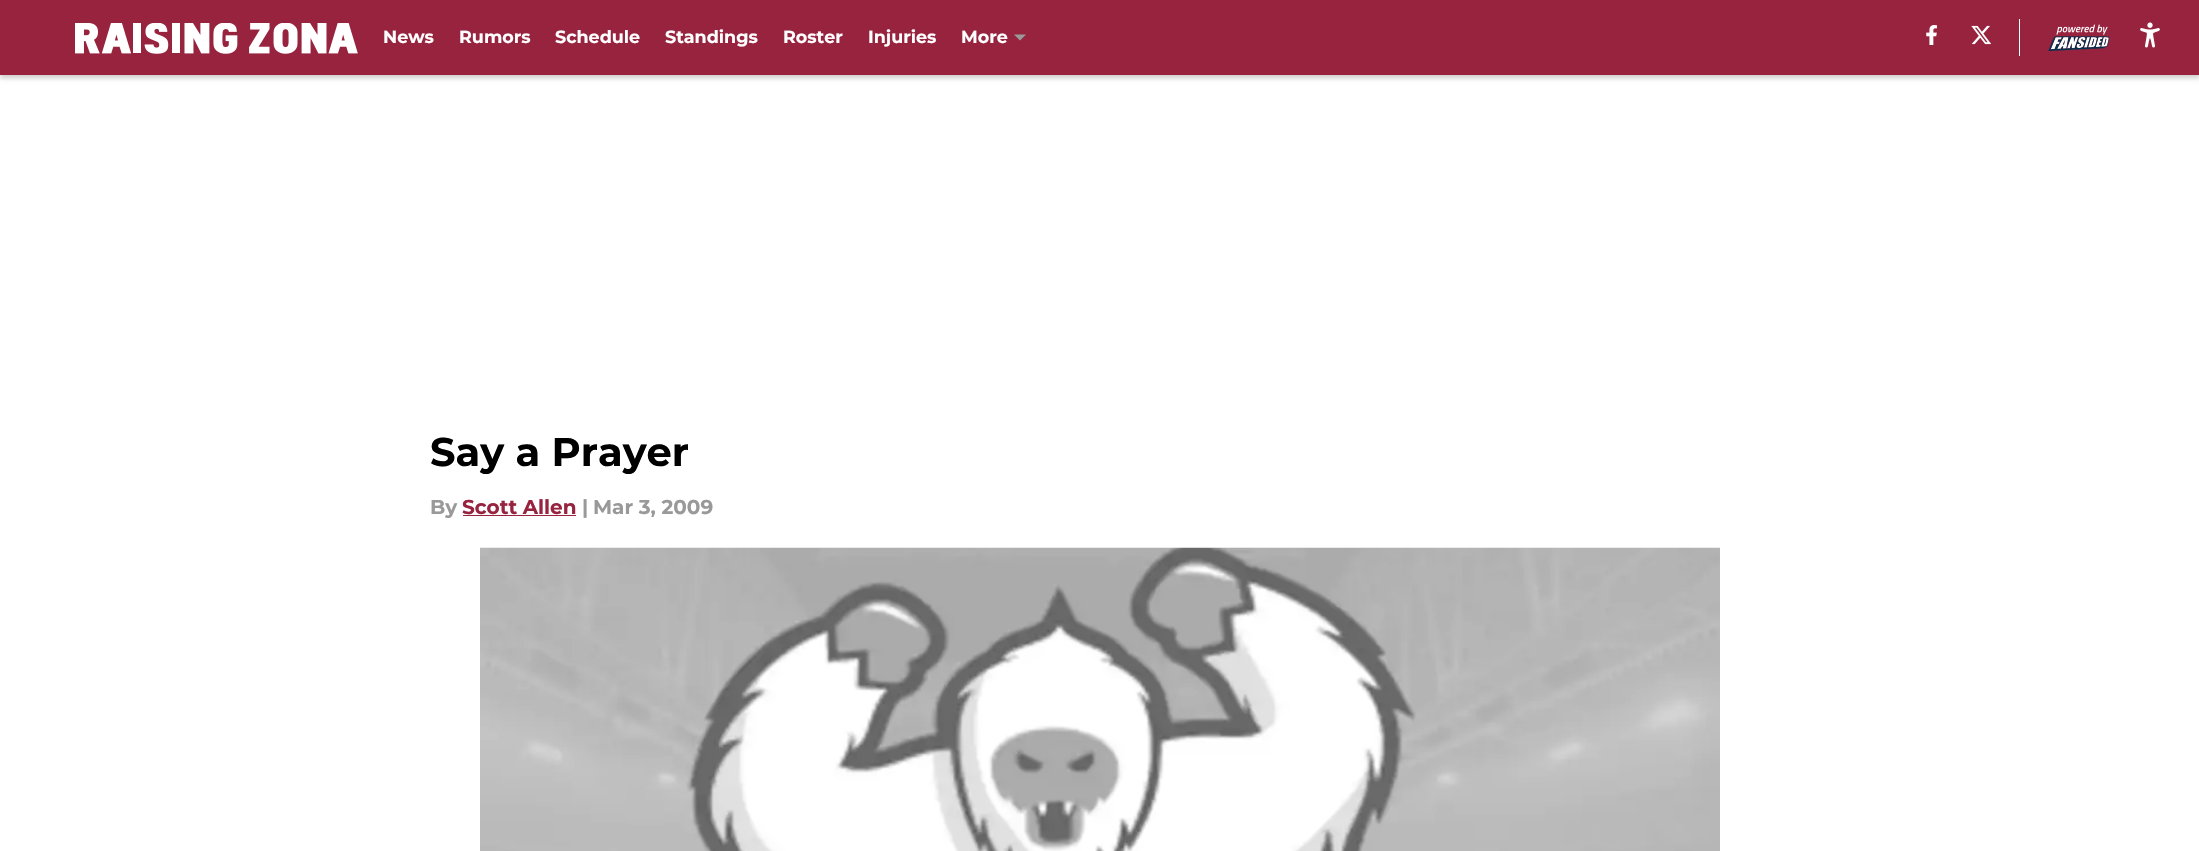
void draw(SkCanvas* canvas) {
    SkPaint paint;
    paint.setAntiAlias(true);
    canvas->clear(0xFFFFFFFF);
    paint.setColor(0x33000000);
    paint.setMaskFilter(SkMaskFilter::MakeBlur(kNormal_SkBlurStyle, 2.5f));
    canvas->drawRect(SkRect::MakeXYWH(0, 3, 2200, 75), paint);
    paint.setMaskFilter(nullptr);
    paint.setColor(0xFF97233F);
    canvas->drawRect(SkRect::MakeXYWH(0, 0, 2199, 75), paint);
    canvas->drawImageRect(SkImages::DeferredFromEncodedData(SkData::MakeFromFileName("img1.png")), SkRect::MakeXYWH(75, 23, 283, 31), SkSamplingOptions());
    SkFont font1(fontMgr->matchFamilyStyle("Montserrat", SkFontStyle(100, SkFontStyle::kNormal_Width, SkFontStyle::kUpright_Slant)), 17.5f);
    font1.setSubpixel(true);
    paint.setColor(0xFFFFFFFF);
    canvas->drawString("News", 383, 43, font1, paint);
    canvas->drawString("Rumors", 459, 43, font1, paint);
    canvas->drawString("Schedule", 555, 43, font1, paint);
    canvas->drawString("Standings", 665, 43, font1, paint);
    canvas->drawString("Roster", 783, 43, font1, paint);
    canvas->drawString("Injuries", 868, 43, font1, paint);
    canvas->drawString("More", 961, 43, font1, paint);
    paint.setColor(0xFF999999);
    canvas->drawPath(SkPathBuilder(SkPathFillType::kEvenOdd).moveTo(1014, 34.5f).lineTo(1020, 40.5f).lineTo(1026, 34.5f).close().detach(), paint);
    canvas->drawImageRect(SkImages::DeferredFromEncodedData(SkData::MakeFromFileName("img2.png")), SkRect::MakeXYWH(1926, 25, 11, 20), SkSamplingOptions());
    canvas->drawImageRect(SkImages::DeferredFromEncodedData(SkData::MakeFromFileName("img3.png")), SkRect::MakeXYWH(1971, 25, 20, 20), SkSamplingOptions());
    paint.setColor(0xFFFFFFFF);
    canvas->drawRect(SkRect::MakeXYWH(2019, 19, 1, 37), paint);
    canvas->drawImageRect(SkImages::DeferredFromEncodedData(SkData::MakeFromFileName("img4.png")), SkRect::MakeXYWH(2048, 24, 62, 27), SkSamplingOptions());
    canvas->drawImageRect(SkImages::DeferredFromEncodedData(SkData::MakeFromFileName("img5.png")), SkRect::MakeXYWH(2140, 22, 20, 26), SkSamplingOptions());
    SkFont font2(fontMgr->matchFamilyStyle("Montserrat", SkFontStyle(100, SkFontStyle::kNormal_Width, SkFontStyle::kUpright_Slant)), 40);
    font2.setSubpixel(true);
    paint.setColor(0xFF000000);
    canvas->drawString("Say a Prayer", 430, 466, font2, paint);
    SkFont font3(fontMgr->matchFamilyStyle("Montserrat", SkFontStyle(100, SkFontStyle::kNormal_Width, SkFontStyle::kUpright_Slant)), 20);
    font3.setSubpixel(true);
    paint.setColor(0xFF999999);
    canvas->drawString("By", 430, 514, font3, paint);
    paint.setColor(0xFF97233F);
    canvas->drawString("Scott Allen", 462, 514, font3, paint);
    canvas->drawRect(SkRect::MakeXYWH(463, 515, 113, 1), paint);
    paint.setColor(0xFF999999);
    canvas->drawString("|", 582, 514, font3, paint);
    canvas->drawString("Mar 3, 2009", 593, 514, font3, paint);
    canvas->drawImageRect(SkImages::DeferredFromEncodedData(SkData::MakeFromFileName("img6.png")), SkRect::MakeXYWH(480, 547, 1240, 304), SkSamplingOptions());
}
